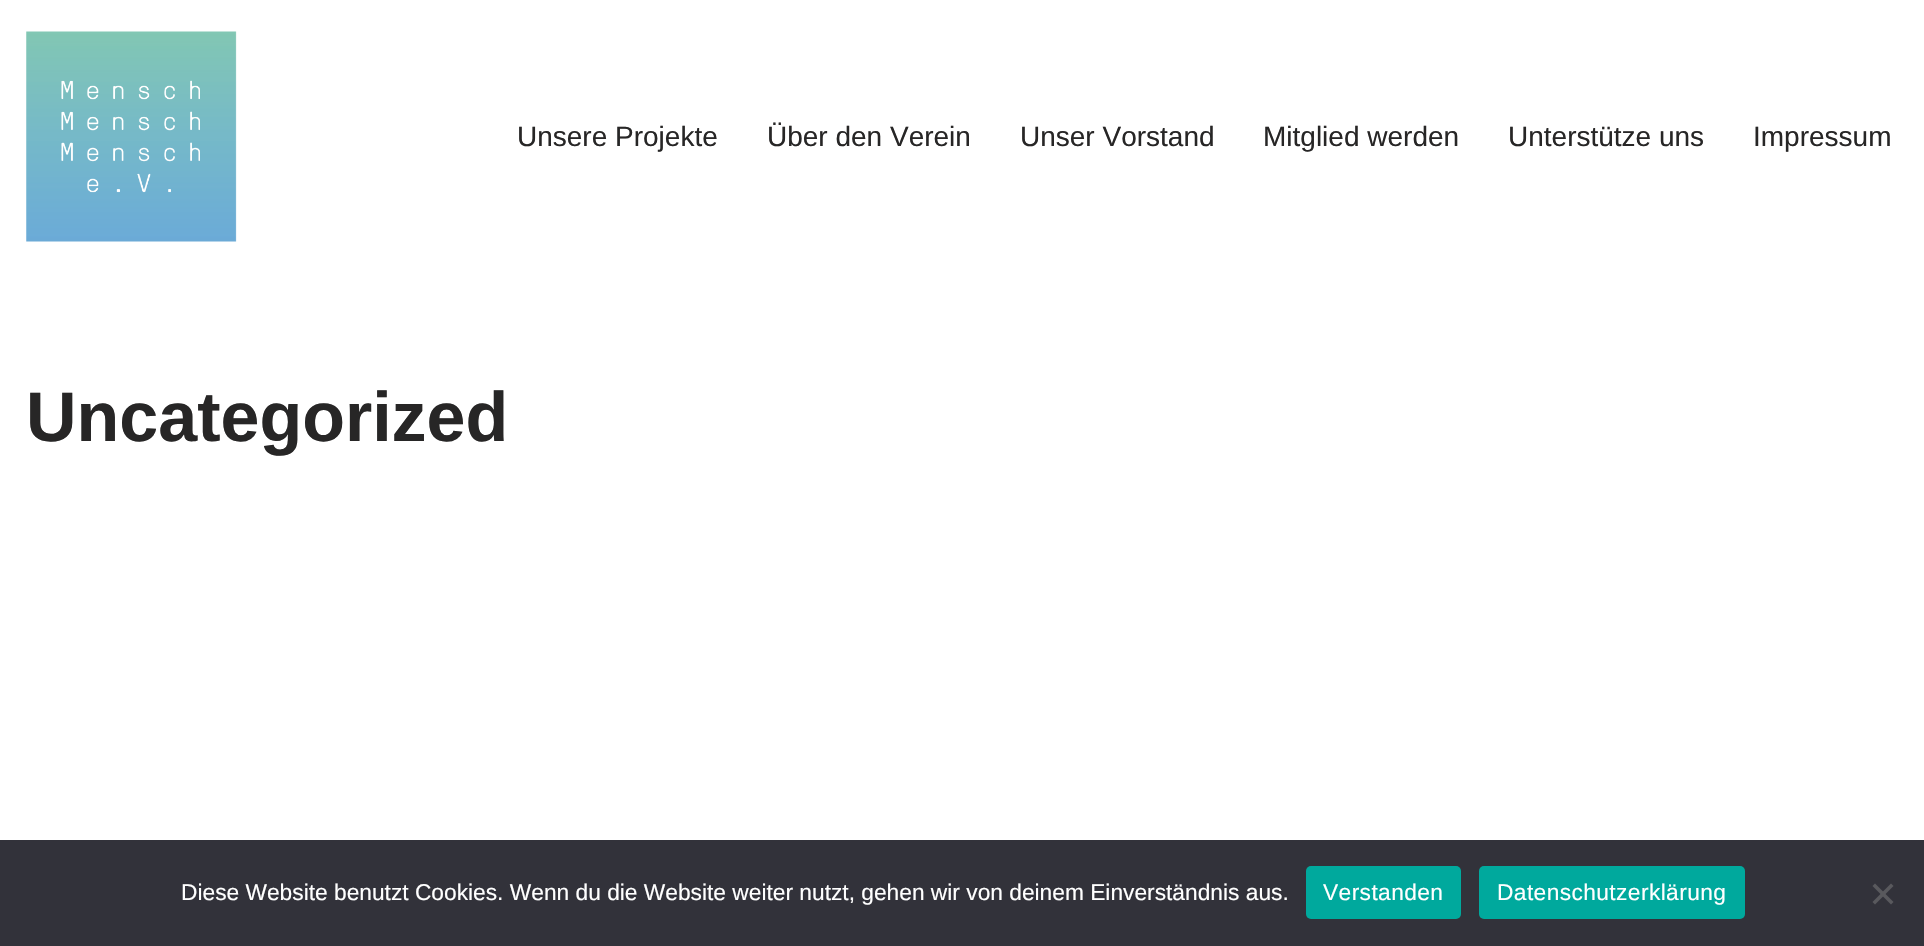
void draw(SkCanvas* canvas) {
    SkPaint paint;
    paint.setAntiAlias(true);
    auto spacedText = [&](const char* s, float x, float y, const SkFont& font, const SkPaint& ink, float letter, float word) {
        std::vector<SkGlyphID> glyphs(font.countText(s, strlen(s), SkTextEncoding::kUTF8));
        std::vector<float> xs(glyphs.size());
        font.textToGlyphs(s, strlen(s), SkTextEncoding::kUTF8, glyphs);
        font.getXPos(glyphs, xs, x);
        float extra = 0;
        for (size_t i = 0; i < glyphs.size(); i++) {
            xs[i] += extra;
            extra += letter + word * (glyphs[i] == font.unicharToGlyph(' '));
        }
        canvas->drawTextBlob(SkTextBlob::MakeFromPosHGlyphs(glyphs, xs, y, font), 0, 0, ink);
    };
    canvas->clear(0xFFFFFFFF);
    canvas->drawImageRect(SkImages::DeferredFromEncodedData(SkData::MakeFromFileName("img1.png")), SkRect::MakeXYWH(26, 31, 211, 211), SkSamplingOptions());
    SkFont font1(fontMgr->matchFamilyStyle("Liberation Sans", SkFontStyle::Normal()), 28);
    font1.setSubpixel(true);
    paint.setColor(0xFF272626);
    canvas->drawString("Unsere Projekte", 517, 146, font1, paint);
    canvas->drawString("Über den Verein", 767, 146, font1, paint);
    canvas->drawString("Unser Vorstand", 1020, 146, font1, paint);
    canvas->drawString("Mitglied werden", 1263, 146, font1, paint);
    canvas->drawString("Unterstütze uns", 1508, 146, font1, paint);
    canvas->drawString("Impressum", 1753, 146, font1, paint);
    SkFont font2(fontMgr->matchFamilyStyle("Liberation Sans", SkFontStyle::Bold()), 70);
    font2.setSubpixel(true);
    canvas->drawString("Uncategorized", 26, 441, font2, paint);
    paint.setColor(0xFF32323A);
    canvas->drawRect(SkRect::MakeXYWH(0, 840, 1924, 106), paint);
    SkFont font3(fontMgr->matchFamilyStyle("Liberation Sans", SkFontStyle::Normal()), 22.75f);
    font3.setSubpixel(true);
    paint.setColor(0xFFFFFFFF);
    canvas->drawString("Diese Website benutzt Cookies. Wenn du die Website weiter nutzt, gehen wir von deinem Einverständnis aus.", 181, 900, font3, paint);
    paint.setColor(0xFF00A99D);
    canvas->drawRoundRect(SkRect::MakeXYWH(1306, 866, 155, 53), 5, 5, paint);
    paint.setColor(0xFFFFFFFF);
    spacedText("Verstanden", 1323, 900, font3, paint, 0.4f, 0);
    paint.setColor(0xFF00A99D);
    canvas->drawRoundRect(SkRect::MakeXYWH(1479, 866, 266, 53), 5, 5, paint);
    paint.setColor(0xFFFFFFFF);
    spacedText("Datenschutzerklärung", 1497, 900, font3, paint, 0.4f, 0);
    paint.setColor(0xFF59595D);
    canvas->drawPath(SkPathBuilder().moveTo(1891, 883.5f).lineTo(1893.5f, 886).lineTo(1875, 904.5f).lineTo(1872.5f, 902).close().detach(), paint);
    canvas->drawPath(SkPathBuilder().moveTo(1872.5f, 886).lineTo(1875, 883.5f).lineTo(1893.5f, 902).lineTo(1891, 904.5f).close().detach(), paint);
}
